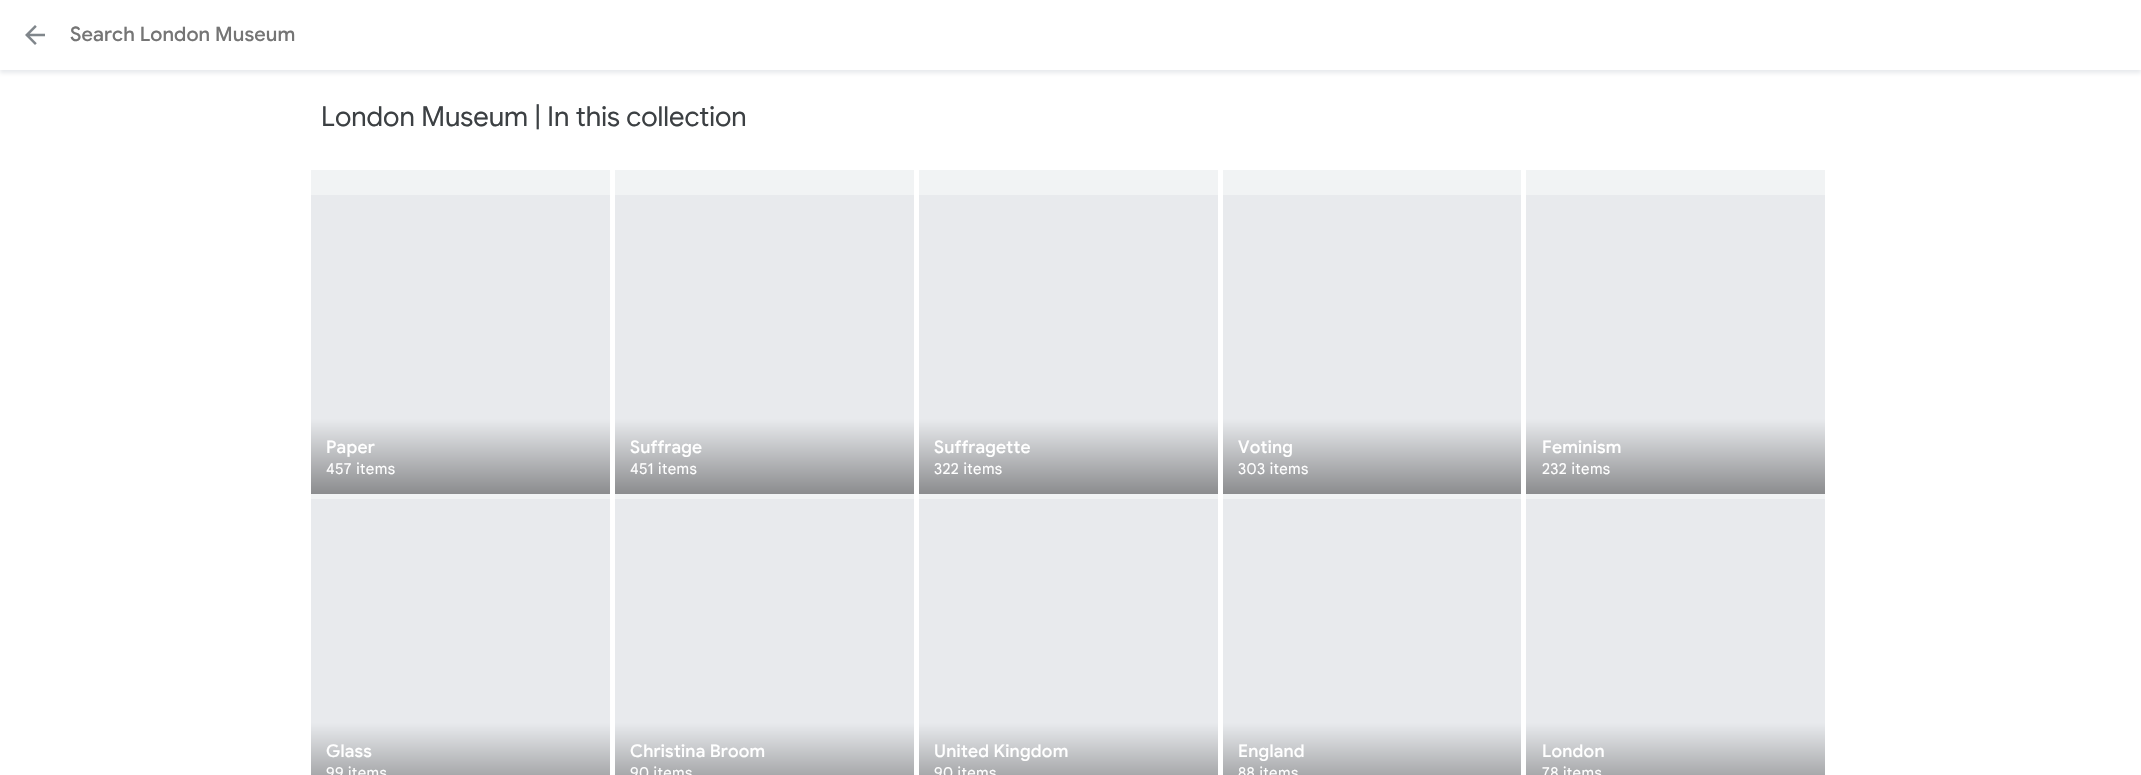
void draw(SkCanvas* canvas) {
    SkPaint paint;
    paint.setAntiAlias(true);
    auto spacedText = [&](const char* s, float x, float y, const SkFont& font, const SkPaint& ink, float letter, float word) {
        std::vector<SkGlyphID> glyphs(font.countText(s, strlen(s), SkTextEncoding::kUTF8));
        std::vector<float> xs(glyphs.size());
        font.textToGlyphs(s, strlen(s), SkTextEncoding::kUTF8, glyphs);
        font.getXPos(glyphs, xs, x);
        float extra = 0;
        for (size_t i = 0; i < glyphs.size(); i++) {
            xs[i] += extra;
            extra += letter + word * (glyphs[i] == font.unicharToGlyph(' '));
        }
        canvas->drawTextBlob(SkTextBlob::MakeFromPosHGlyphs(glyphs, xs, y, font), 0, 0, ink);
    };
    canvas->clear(0xFFFFFFFF);
    canvas->save();
    canvas->clipRect(SkRect::MakeXYWH(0, 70, 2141, 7));
    paint.setColor(0xFFE8EAED);
    paint.setMaskFilter(SkMaskFilter::MakeBlur(kNormal_SkBlurStyle, 2));
    canvas->drawRect(SkRect::MakeXYWH(0, 3, 2141, 70), paint);
    paint.setMaskFilter(nullptr);
    canvas->restore();
    canvas->drawImageRect(SkImages::DeferredFromEncodedData(SkData::MakeFromFileName("img1.png")), SkRect::MakeXYWH(25, 25, 20, 20), SkSamplingOptions());
    SkFont font1(fontMgr->matchFamilyStyle("Google Sans", SkFontStyle(500, SkFontStyle::kNormal_Width, SkFontStyle::kUpright_Slant)), 20);
    font1.setSubpixel(true);
    paint.setColor(0xFF757575);
    spacedText("Search London Museum", 70, 41, font1, paint, 0.1f, 0);
    SkFont font2(fontMgr->matchFamilyStyle("Google Sans", SkFontStyle::Normal()), 27.5f);
    font2.setSubpixel(true);
    paint.setColor(0xFF3C4043);
    canvas->drawString("London Museum | In this collection", 321, 126, font2, paint);
    paint.setColor(0xFFF1F3F4);
    canvas->drawRect(SkRect::MakeXYWH(311, 170, 299, 25), paint);
    paint.setColor(0xFFE8EAED);
    canvas->drawRect(SkRect::MakeXYWH(311, 195, 299, 224), paint);
    {
        const SkColor colors[] = {0xFF8B8C8E, 0xFFE8EAED};
        const float stops[] = {0, 1};
        const SkPoint ends[] = {{461, 494}, {461, 419}};
        paint.setShader(SkGradientShader::MakeLinear(ends, colors, stops, 2, SkTileMode::kClamp));
        paint.setAlpha(255);
    }
    canvas->drawRect(SkRect::MakeXYWH(311, 419, 299, 75), paint);
    SkFont font3(fontMgr->matchFamilyStyle("Google Sans", SkFontStyle(500, SkFontStyle::kNormal_Width, SkFontStyle::kUpright_Slant)), 17.5f);
    font3.setSubpixel(true);
    paint.setShader(nullptr);
    paint.setColor(0xFFFFFFFF);
    spacedText("Paper", 326, 453, font3, paint, 0.25f, 0);
    SkFont font4(fontMgr->matchFamilyStyle("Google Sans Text", SkFontStyle::Normal()), 15);
    font4.setSubpixel(true);
    spacedText("457 items", 326, 474, font4, paint, 0.4f, 0);
    paint.setColor(0xFFF1F3F4);
    canvas->drawRect(SkRect::MakeXYWH(615, 170, 299, 25), paint);
    paint.setColor(0xFFE8EAED);
    canvas->drawRect(SkRect::MakeXYWH(615, 195, 299, 224), paint);
    {
        const SkColor colors[] = {0xFF8B8C8E, 0xFFE8EAED};
        const float stops[] = {0, 1};
        const SkPoint ends[] = {{764, 494}, {764, 419}};
        paint.setShader(SkGradientShader::MakeLinear(ends, colors, stops, 2, SkTileMode::kClamp));
        paint.setAlpha(255);
    }
    canvas->drawRect(SkRect::MakeXYWH(615, 419, 299, 75), paint);
    paint.setShader(nullptr);
    paint.setColor(0xFFFFFFFF);
    spacedText("Suffrage", 630, 453, font3, paint, 0.25f, 0);
    spacedText("451 items", 630, 474, font4, paint, 0.4f, 0);
    paint.setColor(0xFFF1F3F4);
    canvas->drawRect(SkRect::MakeXYWH(919, 170, 299, 25), paint);
    paint.setColor(0xFFE8EAED);
    canvas->drawRect(SkRect::MakeXYWH(919, 195, 299, 224), paint);
    {
        const SkColor colors[] = {0xFF8B8C8E, 0xFFE8EAED};
        const float stops[] = {0, 1};
        const SkPoint ends[] = {{1068, 494}, {1068, 419}};
        paint.setShader(SkGradientShader::MakeLinear(ends, colors, stops, 2, SkTileMode::kClamp));
        paint.setAlpha(255);
    }
    canvas->drawRect(SkRect::MakeXYWH(919, 419, 299, 75), paint);
    paint.setShader(nullptr);
    paint.setColor(0xFFFFFFFF);
    spacedText("Suffragette", 934, 453, font3, paint, 0.25f, 0);
    spacedText("322 items", 934, 474, font4, paint, 0.4f, 0);
    paint.setColor(0xFFF1F3F4);
    canvas->drawRect(SkRect::MakeXYWH(1223, 170, 298, 25), paint);
    paint.setColor(0xFFE8EAED);
    canvas->drawRect(SkRect::MakeXYWH(1223, 195, 298, 224), paint);
    {
        const SkColor colors[] = {0xFF8B8C8E, 0xFFE8EAED};
        const float stops[] = {0, 1};
        const SkPoint ends[] = {{1372, 494}, {1372, 419}};
        paint.setShader(SkGradientShader::MakeLinear(ends, colors, stops, 2, SkTileMode::kClamp));
        paint.setAlpha(255);
    }
    canvas->drawRect(SkRect::MakeXYWH(1223, 419, 298, 75), paint);
    paint.setShader(nullptr);
    paint.setColor(0xFFFFFFFF);
    spacedText("Voting", 1238, 453, font3, paint, 0.25f, 0);
    spacedText("303 items", 1238, 474, font4, paint, 0.4f, 0);
    paint.setColor(0xFFF1F3F4);
    canvas->drawRect(SkRect::MakeXYWH(1526, 170, 299, 25), paint);
    paint.setColor(0xFFE8EAED);
    canvas->drawRect(SkRect::MakeXYWH(1526, 195, 299, 224), paint);
    {
        const SkColor colors[] = {0xFF8B8C8E, 0xFFE8EAED};
        const float stops[] = {0, 1};
        const SkPoint ends[] = {{1676, 494}, {1676, 419}};
        paint.setShader(SkGradientShader::MakeLinear(ends, colors, stops, 2, SkTileMode::kClamp));
        paint.setAlpha(255);
    }
    canvas->drawRect(SkRect::MakeXYWH(1526, 419, 299, 75), paint);
    paint.setShader(nullptr);
    paint.setColor(0xFFFFFFFF);
    spacedText("Feminism", 1542, 453, font3, paint, 0.25f, 0);
    spacedText("232 items", 1542, 474, font4, paint, 0.4f, 0);
    paint.setColor(0xFFF1F3F4);
    canvas->drawRect(SkRect::MakeXYWH(311, 494, 299, 5), paint);
    paint.setColor(0xFFE8EAED);
    canvas->drawRect(SkRect::MakeXYWH(311, 499, 299, 224), paint);
    {
        const SkColor colors[] = {0xFF8B8C8E, 0xFFE8EAED};
        const float stops[] = {0, 1};
        const SkPoint ends[] = {{461, 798}, {461, 723}};
        paint.setShader(SkGradientShader::MakeLinear(ends, colors, stops, 2, SkTileMode::kClamp));
        paint.setAlpha(255);
    }
    canvas->drawRect(SkRect::MakeXYWH(311, 723, 299, 52), paint);
    paint.setShader(nullptr);
    paint.setColor(0xFFFFFFFF);
    spacedText("Glass", 326, 757, font3, paint, 0.25f, 0);
    spacedText("99 items", 326, 778, font4, paint, 0.4f, 0);
    paint.setColor(0xFFF1F3F4);
    canvas->drawRect(SkRect::MakeXYWH(615, 494, 299, 5), paint);
    paint.setColor(0xFFE8EAED);
    canvas->drawRect(SkRect::MakeXYWH(615, 499, 299, 224), paint);
    {
        const SkColor colors[] = {0xFF8B8C8E, 0xFFE8EAED};
        const float stops[] = {0, 1};
        const SkPoint ends[] = {{764, 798}, {764, 723}};
        paint.setShader(SkGradientShader::MakeLinear(ends, colors, stops, 2, SkTileMode::kClamp));
        paint.setAlpha(255);
    }
    canvas->drawRect(SkRect::MakeXYWH(615, 723, 299, 52), paint);
    paint.setShader(nullptr);
    paint.setColor(0xFFFFFFFF);
    spacedText("Christina Broom", 630, 757, font3, paint, 0.25f, 0);
    spacedText("90 items", 630, 778, font4, paint, 0.4f, 0);
    paint.setColor(0xFFF1F3F4);
    canvas->drawRect(SkRect::MakeXYWH(919, 494, 299, 5), paint);
    paint.setColor(0xFFE8EAED);
    canvas->drawRect(SkRect::MakeXYWH(919, 499, 299, 224), paint);
    {
        const SkColor colors[] = {0xFF8B8C8E, 0xFFE8EAED};
        const float stops[] = {0, 1};
        const SkPoint ends[] = {{1068, 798}, {1068, 723}};
        paint.setShader(SkGradientShader::MakeLinear(ends, colors, stops, 2, SkTileMode::kClamp));
        paint.setAlpha(255);
    }
    canvas->drawRect(SkRect::MakeXYWH(919, 723, 299, 52), paint);
    paint.setShader(nullptr);
    paint.setColor(0xFFFFFFFF);
    spacedText("United Kingdom", 934, 757, font3, paint, 0.25f, 0);
    spacedText("90 items", 934, 778, font4, paint, 0.4f, 0);
    paint.setColor(0xFFF1F3F4);
    canvas->drawRect(SkRect::MakeXYWH(1223, 494, 298, 5), paint);
    paint.setColor(0xFFE8EAED);
    canvas->drawRect(SkRect::MakeXYWH(1223, 499, 298, 224), paint);
    {
        const SkColor colors[] = {0xFF8B8C8E, 0xFFE8EAED};
        const float stops[] = {0, 1};
        const SkPoint ends[] = {{1372, 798}, {1372, 723}};
        paint.setShader(SkGradientShader::MakeLinear(ends, colors, stops, 2, SkTileMode::kClamp));
        paint.setAlpha(255);
    }
    canvas->drawRect(SkRect::MakeXYWH(1223, 723, 298, 52), paint);
    paint.setShader(nullptr);
    paint.setColor(0xFFFFFFFF);
    spacedText("England", 1238, 757, font3, paint, 0.25f, 0);
    spacedText("88 items", 1238, 778, font4, paint, 0.4f, 0);
    paint.setColor(0xFFF1F3F4);
    canvas->drawRect(SkRect::MakeXYWH(1526, 494, 299, 5), paint);
    paint.setColor(0xFFE8EAED);
    canvas->drawRect(SkRect::MakeXYWH(1526, 499, 299, 224), paint);
    {
        const SkColor colors[] = {0xFF8B8C8E, 0xFFE8EAED};
        const float stops[] = {0, 1};
        const SkPoint ends[] = {{1676, 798}, {1676, 723}};
        paint.setShader(SkGradientShader::MakeLinear(ends, colors, stops, 2, SkTileMode::kClamp));
        paint.setAlpha(255);
    }
    canvas->drawRect(SkRect::MakeXYWH(1526, 723, 299, 52), paint);
    paint.setShader(nullptr);
    paint.setColor(0xFFFFFFFF);
    spacedText("London", 1542, 757, font3, paint, 0.25f, 0);
    spacedText("78 items", 1542, 778, font4, paint, 0.4f, 0);
}
